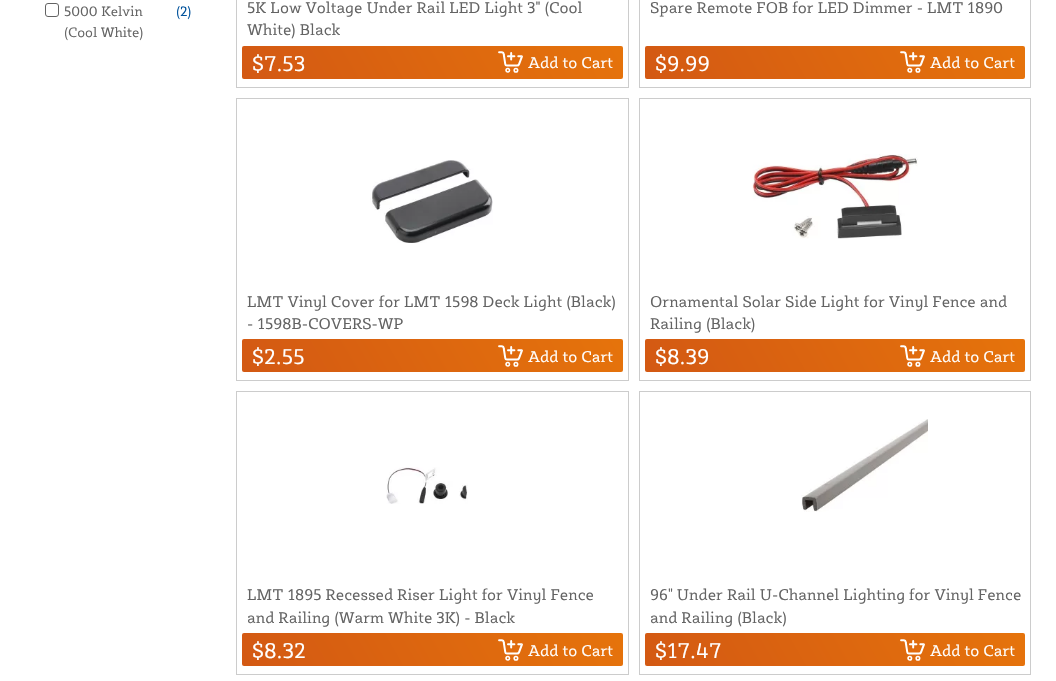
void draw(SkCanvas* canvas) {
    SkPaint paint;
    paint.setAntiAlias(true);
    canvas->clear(0xFFFFFFFF);
    paint.setStyle(SkPaint::kStroke_Style);
    paint.setStrokeWidth(1);
    paint.setColor(0xFF636363);
    canvas->drawRoundRect(SkRect::MakeXYWH(45.5f, 3.5f, 13, 13), 2.5f, 2.5f, paint);
    SkFont font1(fontMgr->matchFamilyStyle("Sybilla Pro", SkFontStyle::Normal()), 14);
    font1.setSubpixel(true);
    paint.setStyle(SkPaint::kFill_Style);
    canvas->drawString("5000 Kelvin", 64, 16, font1, paint);
    paint.setColor(0xFF00529C);
    canvas->drawString("(2)", 176, 16, font1, paint);
    paint.setColor(0xFF636363);
    canvas->drawString("(Cool White)", 64, 37, font1, paint);
    paint.setStyle(SkPaint::kStroke_Style);
    paint.setColor(0xFFCCCCCC);
    canvas->drawRect(SkRect::MakeXYWH(236.5f, -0.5f, 392, 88), paint);
    SkFont font2(fontMgr->matchFamilyStyle("Sybilla Pro", SkFontStyle::Normal()), 16);
    font2.setSubpixel(true);
    paint.setStyle(SkPaint::kFill_Style);
    paint.setColor(0xFF636363);
    canvas->drawString("5K Low Voltage Under Rail LED Light 3\" (Cool", 247, 13, font2, paint);
    canvas->drawString("White) Black", 247, 35, font2, paint);
    {
        const SkColor colors[] = {0xFFCF5315, 0xFFCF5315, 0xFFE6740B, 0xFFCF5315, 0xFFE6740B};
        const float stops[] = {0, 0.13f, 0.28f, 0.35f, 1};
        const SkPoint ends[] = {{-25, 227}, {547, -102}};
        paint.setShader(SkGradientShader::MakeLinear(ends, colors, stops, 5, SkTileMode::kClamp));
        paint.setAlpha(255);
    }
    canvas->drawRoundRect(SkRect::MakeXYWH(242, 46, 381, 33), 2, 2, paint);
    canvas->drawImageRect(SkImages::DeferredFromEncodedData(SkData::MakeFromFileName("img1.png")), SkRect::MakeXYWH(498, 51, 25, 22), SkSamplingOptions());
    SkFont font3(fontMgr->matchFamilyStyle("Sybilla Pro", SkFontStyle::Normal()), 22);
    font3.setSubpixel(true);
    paint.setShader(nullptr);
    paint.setColor(0xFFFFFFFF);
    canvas->drawString("$7.53", 252, 71, font3, paint);
    canvas->drawString("Add to Cart", 528, 68, font2, paint);
    paint.setStyle(SkPaint::kStroke_Style);
    paint.setColor(0xFFCCCCCC);
    canvas->drawRect(SkRect::MakeXYWH(639.5f, -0.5f, 391, 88), paint);
    paint.setStyle(SkPaint::kFill_Style);
    paint.setColor(0xFF636363);
    canvas->drawString("Spare Remote FOB for LED Dimmer - LMT 1890", 650, 13, font2, paint);
    {
        const SkColor colors[] = {0xFFCF5315, 0xFFCF5315, 0xFFE6740B, 0xFFCF5315, 0xFFE6740B};
        const float stops[] = {0, 0.13f, 0.28f, 0.35f, 1};
        const SkPoint ends[] = {{379, 227}, {949, -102}};
        paint.setShader(SkGradientShader::MakeLinear(ends, colors, stops, 5, SkTileMode::kClamp));
        paint.setAlpha(255);
    }
    canvas->drawRoundRect(SkRect::MakeXYWH(645, 46, 380, 33), 2, 2, paint);
    canvas->drawImageRect(SkImages::DeferredFromEncodedData(SkData::MakeFromFileName("img2.png")), SkRect::MakeXYWH(900, 51, 25, 22), SkSamplingOptions());
    paint.setShader(nullptr);
    paint.setColor(0xFFFFFFFF);
    canvas->drawString("$9.99", 655, 71, font3, paint);
    canvas->drawString("Add to Cart", 930, 68, font2, paint);
    paint.setStyle(SkPaint::kStroke_Style);
    paint.setColor(0xFFCCCCCC);
    canvas->drawRect(SkRect::MakeXYWH(236.5f, 98.5f, 392, 282), paint);
    canvas->drawImageRect(SkImages::DeferredFromEncodedData(SkData::MakeFromFileName("img3.png")), SkRect::MakeXYWH(370, 160, 123, 83), SkSamplingOptions());
    paint.setStyle(SkPaint::kFill_Style);
    paint.setColor(0xFF636363);
    canvas->drawString("LMT Vinyl Cover for LMT 1598 Deck Light (Black)", 247, 307, font2, paint);
    canvas->drawString("- 1598B-COVERS-WP", 247, 329, font2, paint);
    {
        const SkColor colors[] = {0xFFCF5315, 0xFFCF5315, 0xFFE6740B, 0xFFCF5315, 0xFFE6740B};
        const float stops[] = {0, 0.13f, 0.28f, 0.35f, 1};
        const SkPoint ends[] = {{-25, 520}, {547, 191}};
        paint.setShader(SkGradientShader::MakeLinear(ends, colors, stops, 5, SkTileMode::kClamp));
        paint.setAlpha(255);
    }
    canvas->drawRoundRect(SkRect::MakeXYWH(242, 339, 381, 33), 2, 2, paint);
    canvas->drawImageRect(SkImages::DeferredFromEncodedData(SkData::MakeFromFileName("img4.png")), SkRect::MakeXYWH(498, 345, 25, 22), SkSamplingOptions());
    paint.setShader(nullptr);
    paint.setColor(0xFFFFFFFF);
    canvas->drawString("$2.55", 252, 364, font3, paint);
    canvas->drawString("Add to Cart", 528, 362, font2, paint);
    paint.setStyle(SkPaint::kStroke_Style);
    paint.setColor(0xFFCCCCCC);
    canvas->drawRect(SkRect::MakeXYWH(639.5f, 98.5f, 391, 282), paint);
    canvas->drawImageRect(SkImages::DeferredFromEncodedData(SkData::MakeFromFileName("img5.png")), SkRect::MakeXYWH(752, 154, 166, 85), SkSamplingOptions());
    paint.setStyle(SkPaint::kFill_Style);
    paint.setColor(0xFF636363);
    canvas->drawString("Ornamental Solar Side Light for Vinyl Fence and", 650, 307, font2, paint);
    canvas->drawString("Railing (Black)", 650, 329, font2, paint);
    {
        const SkColor colors[] = {0xFFCF5315, 0xFFCF5315, 0xFFE6740B, 0xFFCF5315, 0xFFE6740B};
        const float stops[] = {0, 0.13f, 0.28f, 0.35f, 1};
        const SkPoint ends[] = {{379, 520}, {949, 191}};
        paint.setShader(SkGradientShader::MakeLinear(ends, colors, stops, 5, SkTileMode::kClamp));
        paint.setAlpha(255);
    }
    canvas->drawRoundRect(SkRect::MakeXYWH(645, 339, 380, 33), 2, 2, paint);
    canvas->drawImageRect(SkImages::DeferredFromEncodedData(SkData::MakeFromFileName("img6.png")), SkRect::MakeXYWH(900, 345, 25, 22), SkSamplingOptions());
    paint.setShader(nullptr);
    paint.setColor(0xFFFFFFFF);
    canvas->drawString("$8.39", 655, 364, font3, paint);
    canvas->drawString("Add to Cart", 930, 362, font2, paint);
    paint.setStyle(SkPaint::kStroke_Style);
    paint.setColor(0xFFCCCCCC);
    canvas->drawRect(SkRect::MakeXYWH(236.5f, 391.5f, 392, 283), paint);
    canvas->drawImageRect(SkImages::DeferredFromEncodedData(SkData::MakeFromFileName("img7.png")), SkRect::MakeXYWH(386, 467, 82, 37), SkSamplingOptions());
    paint.setStyle(SkPaint::kFill_Style);
    paint.setColor(0xFF636363);
    canvas->drawString("LMT 1895 Recessed Riser Light for Vinyl Fence", 247, 600, font2, paint);
    canvas->drawString("and Railing (Warm White 3K) - Black", 247, 623, font2, paint);
    {
        const SkColor colors[] = {0xFFCF5315, 0xFFCF5315, 0xFFE6740B, 0xFFCF5315, 0xFFE6740B};
        const float stops[] = {0, 0.13f, 0.28f, 0.35f, 1};
        const SkPoint ends[] = {{-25, 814}, {547, 485}};
        paint.setShader(SkGradientShader::MakeLinear(ends, colors, stops, 5, SkTileMode::kClamp));
        paint.setAlpha(255);
    }
    canvas->drawRoundRect(SkRect::MakeXYWH(242, 633, 381, 33), 2, 2, paint);
    canvas->drawImageRect(SkImages::DeferredFromEncodedData(SkData::MakeFromFileName("img4.png")), SkRect::MakeXYWH(498, 639, 25, 22), SkSamplingOptions());
    paint.setShader(nullptr);
    paint.setColor(0xFFFFFFFF);
    canvas->drawString("$8.32", 252, 658, font3, paint);
    canvas->drawString("Add to Cart", 528, 656, font2, paint);
    paint.setStyle(SkPaint::kStroke_Style);
    paint.setColor(0xFFCCCCCC);
    canvas->drawRect(SkRect::MakeXYWH(639.5f, 391.5f, 391, 283), paint);
    canvas->drawImageRect(SkImages::DeferredFromEncodedData(SkData::MakeFromFileName("img8.png")), SkRect::MakeXYWH(801, 419, 127, 93), SkSamplingOptions());
    paint.setStyle(SkPaint::kFill_Style);
    paint.setColor(0xFF636363);
    canvas->drawString("96\" Under Rail U-Channel Lighting for Vinyl Fence", 650, 600, font2, paint);
    canvas->drawString("and Railing (Black)", 650, 623, font2, paint);
    {
        const SkColor colors[] = {0xFFCF5315, 0xFFCF5315, 0xFFE6740B, 0xFFCF5315, 0xFFE6740B};
        const float stops[] = {0, 0.13f, 0.28f, 0.35f, 1};
        const SkPoint ends[] = {{379, 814}, {949, 485}};
        paint.setShader(SkGradientShader::MakeLinear(ends, colors, stops, 5, SkTileMode::kClamp));
        paint.setAlpha(255);
    }
    canvas->drawRoundRect(SkRect::MakeXYWH(645, 633, 380, 33), 2, 2, paint);
    canvas->drawImageRect(SkImages::DeferredFromEncodedData(SkData::MakeFromFileName("img6.png")), SkRect::MakeXYWH(900, 639, 25, 22), SkSamplingOptions());
    paint.setShader(nullptr);
    paint.setColor(0xFFFFFFFF);
    canvas->drawString("$17.47", 655, 658, font3, paint);
    canvas->drawString("Add to Cart", 930, 656, font2, paint);
}
